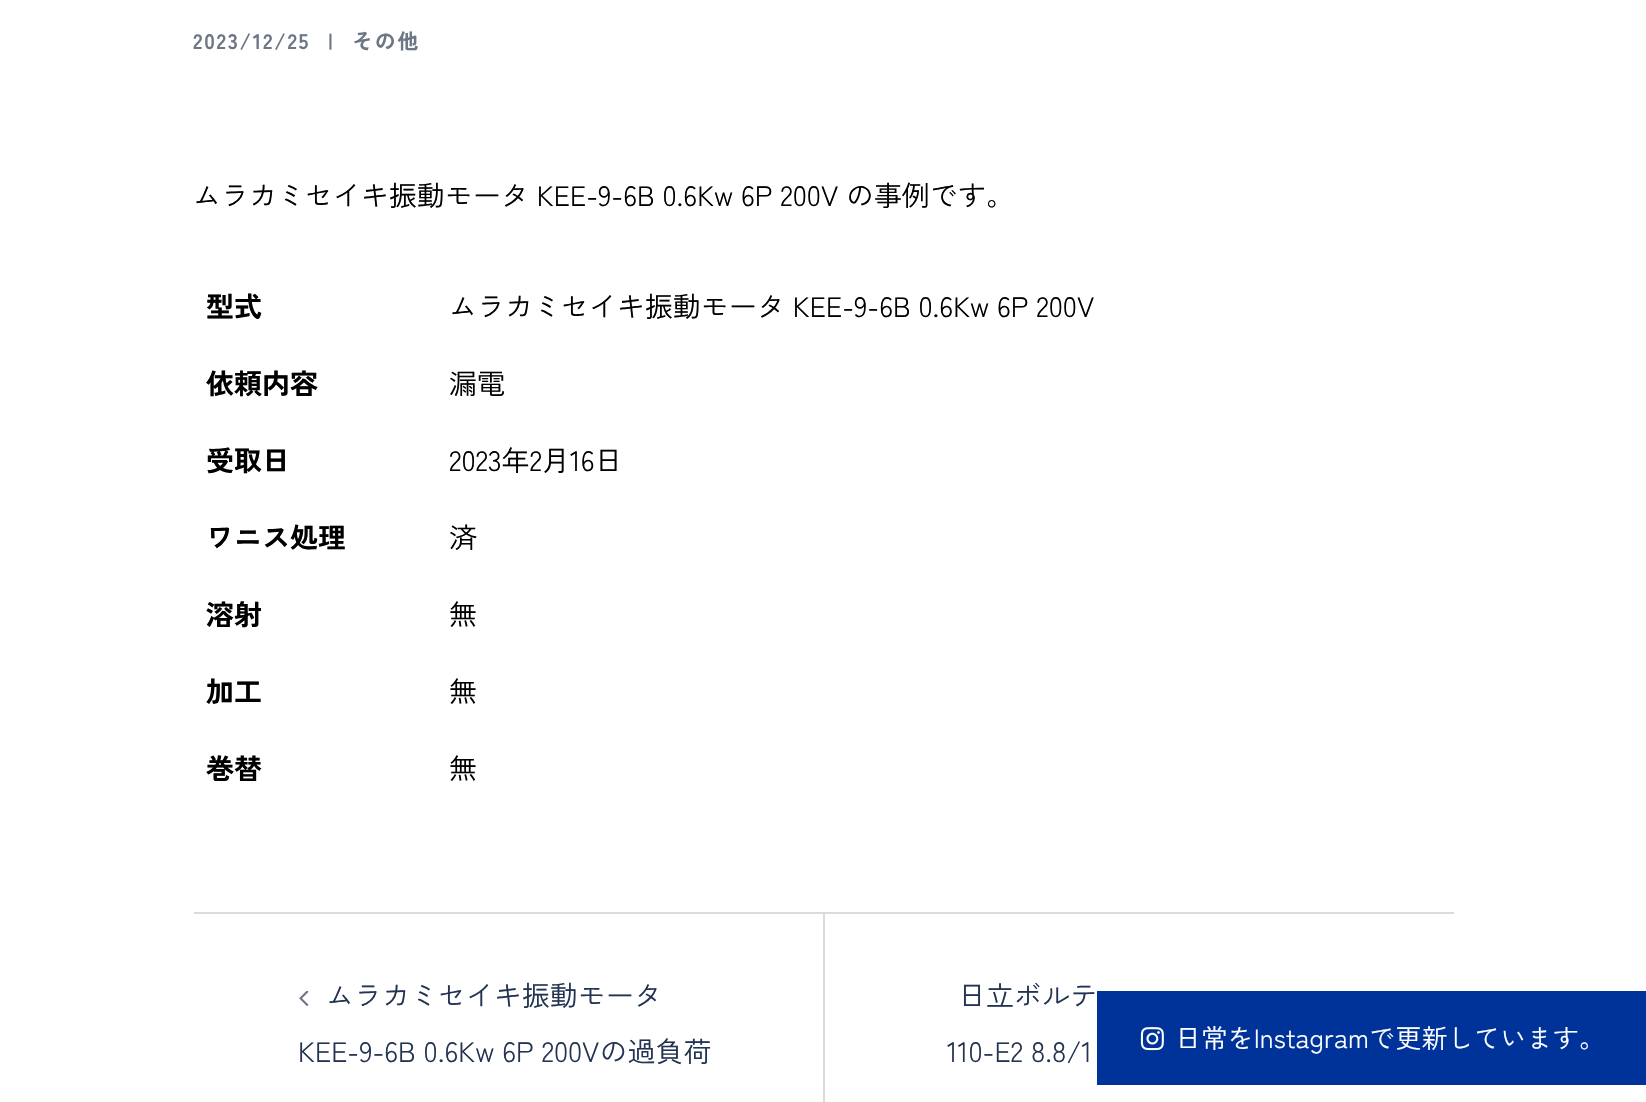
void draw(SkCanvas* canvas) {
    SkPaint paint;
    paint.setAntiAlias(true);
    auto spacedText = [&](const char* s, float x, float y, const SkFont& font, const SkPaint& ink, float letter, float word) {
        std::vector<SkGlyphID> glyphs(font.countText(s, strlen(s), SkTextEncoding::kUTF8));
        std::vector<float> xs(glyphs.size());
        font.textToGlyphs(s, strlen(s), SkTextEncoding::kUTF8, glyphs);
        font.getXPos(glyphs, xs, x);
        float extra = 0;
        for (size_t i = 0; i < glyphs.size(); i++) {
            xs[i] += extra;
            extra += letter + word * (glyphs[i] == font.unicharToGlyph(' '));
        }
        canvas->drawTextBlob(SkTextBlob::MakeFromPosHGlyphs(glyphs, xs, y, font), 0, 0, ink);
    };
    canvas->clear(0xFFFFFFFF);
    SkFont font1(fontMgr->matchFamilyStyle("Zen Kaku Gothic New", SkFontStyle::Bold()), 21);
    font1.setSubpixel(true);
    paint.setColor(0xFF6D7685);
    spacedText("2023/12/25", 193, 49, font1, paint, 1.75f, 0);
    spacedText("|", 328, 49, font1, paint, 1.75f, 0);
    spacedText("その他", 352, 49, font1, paint, 1.75f, 0);
    SkFont font2(fontMgr->matchFamilyStyle("Zen Kaku Gothic New", SkFontStyle::Normal()), 28);
    font2.setSubpixel(true);
    paint.setColor(0xFF000000);
    canvas->drawString("ムラカミセイキ振動モータ KEE-9-6B 0.6Kw 6P 200V の事例です。", 193, 206, font2, paint);
    SkFont font3(fontMgr->matchFamilyStyle("Zen Kaku Gothic New", SkFontStyle::Bold()), 28);
    font3.setSubpixel(true);
    canvas->drawString("型式", 206, 317, font3, paint);
    canvas->drawString("ムラカミセイキ振動モータ KEE-9-6B 0.6Kw 6P 200V", 449, 317, font2, paint);
    canvas->drawString("依頼内容", 206, 394, font3, paint);
    canvas->drawString("漏電", 449, 394, font2, paint);
    canvas->drawString("受取日", 206, 471, font3, paint);
    canvas->drawString("2023年2月16日", 449, 471, font2, paint);
    canvas->drawString("ワニス処理", 206, 548, font3, paint);
    canvas->drawString("済", 449, 548, font2, paint);
    canvas->drawString("溶射", 206, 625, font3, paint);
    canvas->drawString("無", 449, 625, font2, paint);
    canvas->drawString("加工", 206, 702, font3, paint);
    canvas->drawString("無", 449, 702, font2, paint);
    canvas->drawString("巻替", 206, 779, font3, paint);
    canvas->drawString("無", 449, 779, font2, paint);
    paint.setColor(0xFFDBDBDB);
    canvas->drawRect(SkRect::MakeXYWH(194, 912, 1260, 2), paint);
    canvas->drawRect(SkRect::MakeXYWH(823, 914, 2, 188), paint);
    canvas->drawImageRect(SkImages::DeferredFromEncodedData(SkData::MakeFromFileName("img1.png")), SkRect::MakeXYWH(299, 991, 10, 15), SkSamplingOptions());
    paint.setColor(0xFF233452);
    canvas->drawString("ムラカミセイキ振動モータ", 326, 1006, font2, paint);
    canvas->drawString("KEE-9-6B 0.6Kw 6P 200Vの過負荷", 298, 1062, font2, paint);
    canvas->drawString("日立ボルテ", 958, 1006, font2, paint);
    canvas->drawString("110-E2 8.8/1", 947, 1062, font2, paint);
    paint.setColor(0xFF003399);
    canvas->drawRect(SkRect::MakeXYWH(1097, 991, 549, 94), paint);
    canvas->drawImageRect(SkImages::DeferredFromEncodedData(SkData::MakeFromFileName("img2.png")), SkRect::MakeXYWH(1140, 1027, 24, 24), SkSamplingOptions());
    SkFont font4(fontMgr->matchFamilyStyle("Zen Kaku Gothic New", SkFontStyle::Normal()), 26.25f);
    font4.setSubpixel(true);
    paint.setColor(0xFFFFFFFF);
    canvas->drawString("日常をInstagramで更新しています。", 1175, 1048, font4, paint);
}
